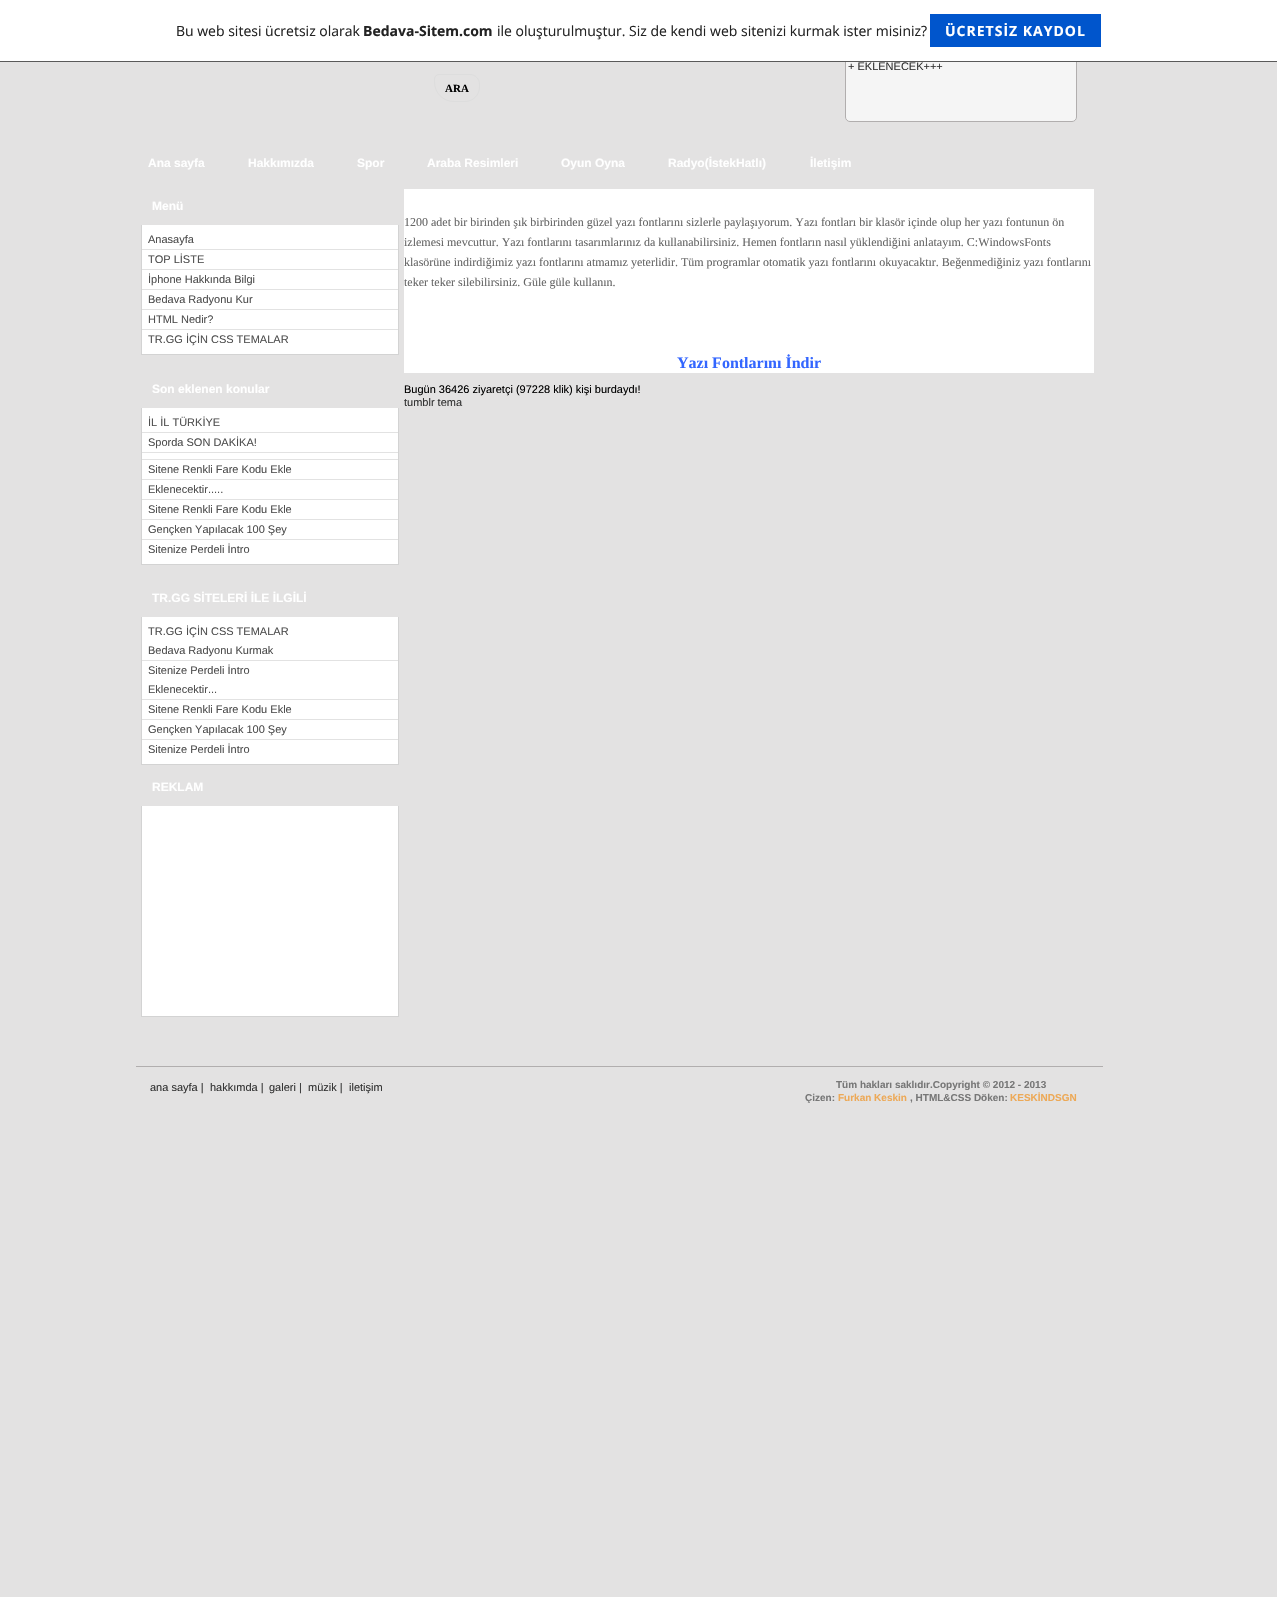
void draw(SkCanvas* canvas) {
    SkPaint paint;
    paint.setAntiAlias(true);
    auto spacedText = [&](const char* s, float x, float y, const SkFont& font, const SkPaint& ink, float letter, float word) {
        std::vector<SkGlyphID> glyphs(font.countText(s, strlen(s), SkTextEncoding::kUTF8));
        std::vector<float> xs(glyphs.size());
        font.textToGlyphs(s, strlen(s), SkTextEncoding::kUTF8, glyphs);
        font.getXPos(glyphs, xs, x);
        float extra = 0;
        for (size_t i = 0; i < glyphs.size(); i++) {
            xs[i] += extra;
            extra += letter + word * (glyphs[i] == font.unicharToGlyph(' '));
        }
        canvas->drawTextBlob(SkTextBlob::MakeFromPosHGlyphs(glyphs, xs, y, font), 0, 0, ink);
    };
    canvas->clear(0xFFE3E2E2);
    paint.setColor(0xFFF5F5F5);
    canvas->drawRoundRect(SkRect::MakeXYWH(845.5f, 25.5f, 231, 96), 4.5f, 4.5f, paint);
    paint.setStyle(SkPaint::kStroke_Style);
    paint.setStrokeWidth(1);
    paint.setColor(0xFFB1AEAE);
    canvas->drawRoundRect(SkRect::MakeXYWH(845.5f, 25.5f, 231, 96), 4.5f, 4.5f, paint);
    paint.setStyle(SkPaint::kFill_Style);
    paint.setColor(0xFFFFFFFF);
    canvas->drawRect(SkRect::MakeXYWH(0, 0, 1277, 61), paint);
    paint.setColor(0xFF5A5A5A);
    canvas->drawRect(SkRect::MakeXYWH(0, 61, 1277, 1), paint);
    SkFont font1(fontMgr->matchFamilyStyle("Open Sans", SkFontStyle::Normal()), 14);
    font1.setSubpixel(true);
    paint.setColor(0xFF232323);
    canvas->drawString("Bu web sitesi ücretsiz olarak", 176, 36, font1, paint);
    SkFont font2(fontMgr->matchFamilyStyle("Open Sans", SkFontStyle::Bold()), 14);
    font2.setSubpixel(true);
    canvas->drawString("Bedava-Sitem.com", 363, 36, font2, paint);
    canvas->drawString("ile oluşturulmuştur. Siz de kendi web sitenizi kurmak ister misiniz?", 497, 36, font1, paint);
    paint.setColor(0xFF0055CC);
    canvas->drawRect(SkRect::MakeXYWH(930, 14, 171, 33), paint);
    paint.setColor(0xFFFFFFFF);
    spacedText("ÜCRETSİZ KAYDOL", 945, 36, font2, paint, 1, 0);
    SkFont font3(fontMgr->matchFamilyStyle("Liberation Sans", SkFontStyle::Normal()), 11);
    font3.setSubpixel(true);
    paint.setColor(0xFF333333);
    canvas->drawString("+ EKLENECEK+++", 848, 70, font3, paint);
    paint.setStyle(SkPaint::kStroke_Style);
    paint.setColor(0xFFDDDDDD);
    canvas->drawPath(SkPathBuilder().moveTo(439, 74.5f).lineTo(470, 74.5f).cubicTo(475, 74.5f, 479.5f, 79, 479.5f, 84).lineTo(479.5f, 87).cubicTo(479.5f, 95, 473, 101.5f, 465, 101.5f).lineTo(454, 101.5f).cubicTo(443, 101.5f, 434.5f, 93, 434.5f, 82).lineTo(434.5f, 79).cubicTo(434.5f, 76.5f, 436.5f, 74.5f, 439, 74.5f).close().detach(), paint);
    SkFont font4(fontMgr->matchFamilyStyle("Liberation Serif", SkFontStyle::Bold()), 11);
    font4.setSubpixel(true);
    paint.setStyle(SkPaint::kFill_Style);
    paint.setColor(0xFF000000);
    canvas->drawString("ARA", 445, 92, font4, paint);
    SkFont font5(fontMgr->matchFamilyStyle("Liberation Sans", SkFontStyle::Bold()), 12);
    font5.setSubpixel(true);
    paint.setColor(0xFFFFFFFF);
    canvas->drawString("Ana sayfa", 148, 167, font5, paint);
    canvas->drawString("Hakkımızda", 248, 167, font5, paint);
    canvas->drawString("Spor", 357, 167, font5, paint);
    canvas->drawString("Araba Resimleri", 427, 167, font5, paint);
    canvas->drawString("Oyun Oyna", 561, 167, font5, paint);
    canvas->drawString("Radyo(İstekHatlı)", 668, 167, font5, paint);
    canvas->drawString("İletişim", 810, 167, font5, paint);
    canvas->drawString("Menü", 152, 210, font5, paint);
    canvas->drawRect(SkRect::MakeXYWH(142, 225, 256, 129), paint);
    paint.setColor(0xFFD3D3D3);
    canvas->drawRect(SkRect::MakeXYWH(398, 225, 1, 130), paint);
    canvas->drawRect(SkRect::MakeXYWH(141, 354, 258, 1), paint);
    canvas->drawRect(SkRect::MakeXYWH(141, 225, 1, 130), paint);
    paint.setColor(0xFFE2E2E2);
    canvas->drawRect(SkRect::MakeXYWH(142, 249, 256, 1), paint);
    paint.setColor(0xFF4E4E4E);
    canvas->drawString("Anasayfa", 148, 243, font3, paint);
    paint.setColor(0xFFE2E2E2);
    canvas->drawRect(SkRect::MakeXYWH(142, 269, 256, 1), paint);
    paint.setColor(0xFF4E4E4E);
    canvas->drawString("TOP LİSTE", 148, 263, font3, paint);
    paint.setColor(0xFFE2E2E2);
    canvas->drawRect(SkRect::MakeXYWH(142, 289, 256, 1), paint);
    paint.setColor(0xFF4E4E4E);
    canvas->drawString("İphone Hakkında Bilgi", 148, 283, font3, paint);
    paint.setColor(0xFFE2E2E2);
    canvas->drawRect(SkRect::MakeXYWH(142, 309, 256, 1), paint);
    paint.setColor(0xFF4E4E4E);
    canvas->drawString("Bedava Radyonu Kur", 148, 303, font3, paint);
    paint.setColor(0xFFE2E2E2);
    canvas->drawRect(SkRect::MakeXYWH(142, 329, 256, 1), paint);
    paint.setColor(0xFF4E4E4E);
    canvas->drawString("HTML Nedir?", 148, 323, font3, paint);
    canvas->drawString("TR.GG İÇİN CSS TEMALAR", 148, 343, font3, paint);
    paint.setColor(0xFFFFFFFF);
    canvas->drawString("Son eklenen konular", 152, 393, font5, paint);
    canvas->drawRect(SkRect::MakeXYWH(142, 408, 256, 156), paint);
    paint.setColor(0xFFD3D3D3);
    canvas->drawRect(SkRect::MakeXYWH(398, 408, 1, 157), paint);
    canvas->drawRect(SkRect::MakeXYWH(141, 564, 258, 1), paint);
    canvas->drawRect(SkRect::MakeXYWH(141, 408, 1, 157), paint);
    paint.setColor(0xFFE2E2E2);
    canvas->drawRect(SkRect::MakeXYWH(142, 432, 256, 1), paint);
    paint.setColor(0xFF4E4E4E);
    canvas->drawString("İL İL TÜRKİYE", 148, 426, font3, paint);
    paint.setColor(0xFFE2E2E2);
    canvas->drawRect(SkRect::MakeXYWH(142, 452, 256, 1), paint);
    paint.setColor(0xFF4E4E4E);
    canvas->drawString("Sporda SON DAKİKA!", 148, 446, font3, paint);
    paint.setColor(0xFFE2E2E2);
    canvas->drawRect(SkRect::MakeXYWH(142, 459, 256, 1), paint);
    canvas->drawRect(SkRect::MakeXYWH(142, 479, 256, 1), paint);
    paint.setColor(0xFF4E4E4E);
    canvas->drawString("Sitene Renkli Fare Kodu Ekle", 148, 473, font3, paint);
    paint.setColor(0xFFE2E2E2);
    canvas->drawRect(SkRect::MakeXYWH(142, 499, 256, 1), paint);
    paint.setColor(0xFF4E4E4E);
    canvas->drawString("Eklenecektir.....", 148, 493, font3, paint);
    paint.setColor(0xFFE2E2E2);
    canvas->drawRect(SkRect::MakeXYWH(142, 519, 256, 1), paint);
    paint.setColor(0xFF4E4E4E);
    canvas->drawString("Sitene Renkli Fare Kodu Ekle", 148, 513, font3, paint);
    paint.setColor(0xFFE2E2E2);
    canvas->drawRect(SkRect::MakeXYWH(142, 539, 256, 1), paint);
    paint.setColor(0xFF4E4E4E);
    canvas->drawString("Gençken Yapılacak 100 Şey", 148, 533, font3, paint);
    canvas->drawString("Sitenize Perdeli İntro", 148, 553, font3, paint);
    paint.setColor(0xFFFFFFFF);
    canvas->drawString("TR.GG SİTELERİ İLE İLGİLİ", 152, 602, font5, paint);
    canvas->drawRect(SkRect::MakeXYWH(142, 617, 256, 147), paint);
    paint.setColor(0xFFD3D3D3);
    canvas->drawRect(SkRect::MakeXYWH(398, 617, 1, 148), paint);
    canvas->drawRect(SkRect::MakeXYWH(141, 764, 258, 1), paint);
    canvas->drawRect(SkRect::MakeXYWH(141, 617, 1, 148), paint);
    paint.setColor(0xFF4E4E4E);
    canvas->drawString("TR.GG İÇİN CSS TEMALAR", 148, 635, font3, paint);
    paint.setColor(0xFFE2E2E2);
    canvas->drawRect(SkRect::MakeXYWH(142, 660, 256, 1), paint);
    paint.setColor(0xFF4E4E4E);
    canvas->drawString("Bedava Radyonu Kurmak", 148, 654, font3, paint);
    canvas->drawString("Sitenize Perdeli İntro", 148, 674, font3, paint);
    paint.setColor(0xFFE2E2E2);
    canvas->drawRect(SkRect::MakeXYWH(142, 699, 256, 1), paint);
    paint.setColor(0xFF4E4E4E);
    canvas->drawString("Eklenecektir...", 148, 693, font3, paint);
    paint.setColor(0xFFE2E2E2);
    canvas->drawRect(SkRect::MakeXYWH(142, 719, 256, 1), paint);
    paint.setColor(0xFF4E4E4E);
    canvas->drawString("Sitene Renkli Fare Kodu Ekle", 148, 713, font3, paint);
    paint.setColor(0xFFE2E2E2);
    canvas->drawRect(SkRect::MakeXYWH(142, 739, 256, 1), paint);
    paint.setColor(0xFF4E4E4E);
    canvas->drawString("Gençken Yapılacak 100 Şey", 148, 733, font3, paint);
    canvas->drawString("Sitenize Perdeli İntro", 148, 753, font3, paint);
    paint.setColor(0xFFFFFFFF);
    canvas->drawString("REKLAM", 152, 791, font5, paint);
    canvas->drawRect(SkRect::MakeXYWH(142, 806, 256, 210), paint);
    paint.setColor(0xFFD3D3D3);
    canvas->drawRect(SkRect::MakeXYWH(398, 806, 1, 211), paint);
    canvas->drawRect(SkRect::MakeXYWH(141, 1016, 258, 1), paint);
    canvas->drawRect(SkRect::MakeXYWH(141, 806, 1, 211), paint);
    paint.setColor(0xFFFFFFFF);
    canvas->drawRect(SkRect::MakeXYWH(404, 189, 690, 184), paint);
    SkFont font6(fontMgr->matchFamilyStyle("Liberation Serif", SkFontStyle::Normal()), 12);
    font6.setSubpixel(true);
    paint.setColor(0xFF666666);
    canvas->drawString("1200 adet bir birinden şık birbirinden güzel yazı fontlarını sizlerle paylaşıyorum. Yazı fontları bir klasör içinde olup her yazı fontunun ön", 404, 226, font6, paint);
    canvas->drawString("izlemesi mevcuttur. Yazı fontlarını tasarımlarınız da kullanabilirsiniz. Hemen fontların nasıl yüklendiğini anlatayım. C:WindowsFonts", 404, 246, font6, paint);
    canvas->drawString("klasörüne indirdiğimiz yazı fontlarını atmamız yeterlidir. Tüm programlar otomatik yazı fontlarını okuyacaktır. Beğenmediğiniz yazı fontlarını", 404, 266, font6, paint);
    canvas->drawString("teker teker silebilirsiniz. Güle güle kullanın.", 404, 286, font6, paint);
    SkFont font7(fontMgr->matchFamilyStyle("Liberation Serif", SkFontStyle::Bold()), 16);
    font7.setSubpixel(true);
    paint.setColor(0xFF3366FF);
    canvas->drawString("Yazı Fontlarını İndir", 677, 368, font7, paint);
    paint.setColor(0xFF000000);
    canvas->drawString("Bugün 36426 ziyaretçi (97228 klik) kişi burdaydı!", 404, 393, font3, paint);
    paint.setColor(0xFF333333);
    canvas->drawString("tumblr tema", 404, 406, font3, paint);
    paint.setColor(0xFFB1AEAE);
    canvas->drawRect(SkRect::MakeXYWH(136, 1066, 967, 1), paint);
    paint.setColor(0xFF333333);
    canvas->drawString("ana sayfa |", 150, 1091, font3, paint);
    canvas->drawString("hakkımda |", 210, 1091, font3, paint);
    canvas->drawString("galeri |", 269, 1091, font3, paint);
    canvas->drawString("müzik |", 308, 1091, font3, paint);
    canvas->drawString("iletişim", 349, 1091, font3, paint);
    SkFont font8(fontMgr->matchFamilyStyle("Liberation Sans", SkFontStyle::Bold()), 10);
    font8.setSubpixel(true);
    paint.setColor(0xFF777777);
    canvas->drawString("Tüm hakları saklıdır.Copyright © 2012 - 2013", 836, 1088, font8, paint);
    canvas->drawString("Çizen:", 805, 1101, font8, paint);
    paint.setColor(0xFFEDA957);
    canvas->drawString("Furkan Keskin", 838, 1101, font8, paint);
    paint.setColor(0xFF777777);
    canvas->drawString(", HTML&CSS Döken:", 910, 1101, font8, paint);
    paint.setColor(0xFFEDA957);
    canvas->drawString("KESKİNDSGN", 1010, 1101, font8, paint);
}
